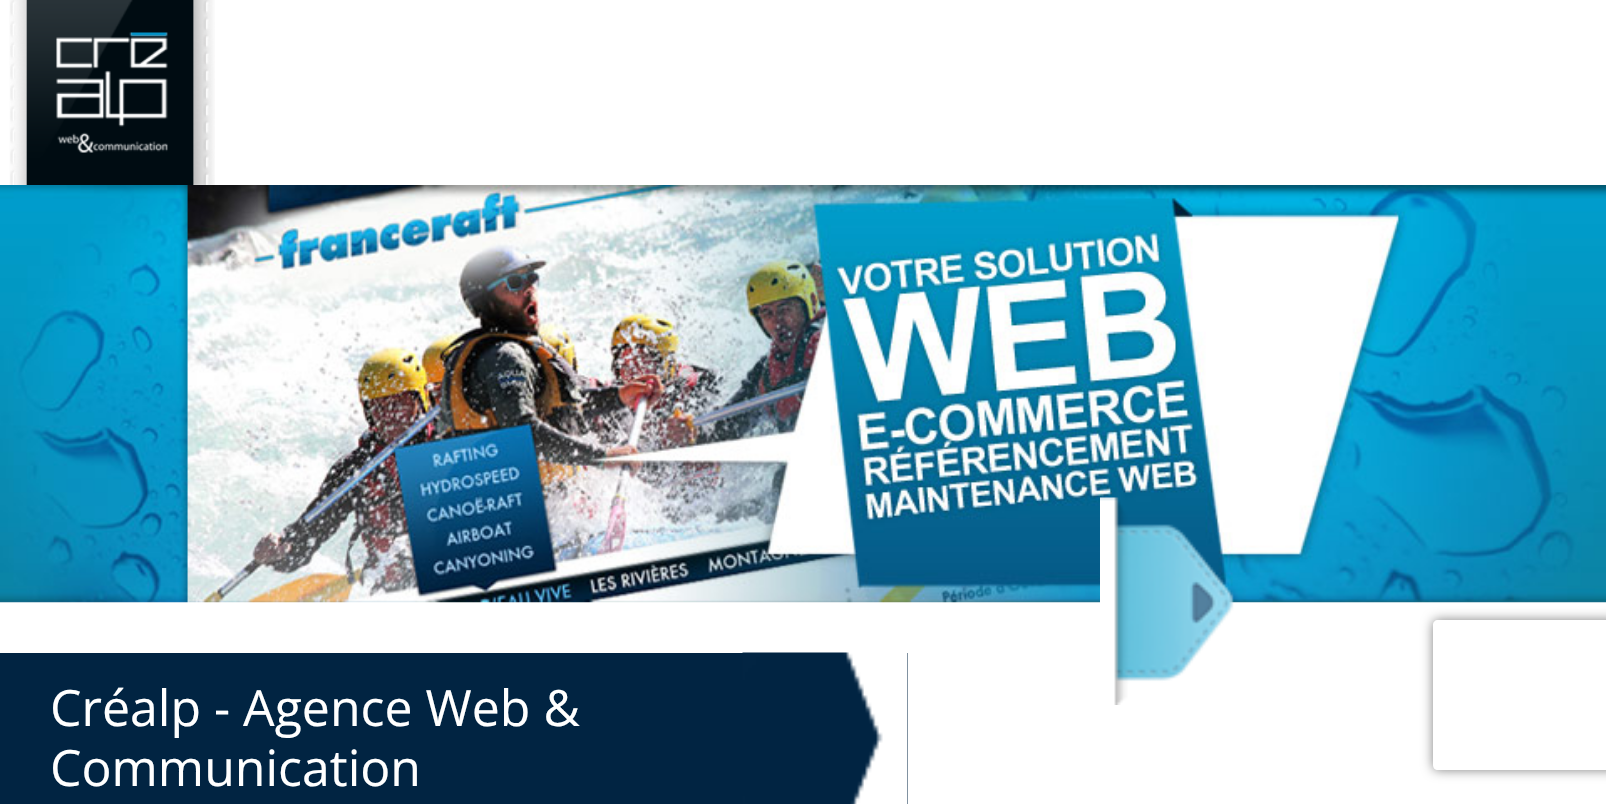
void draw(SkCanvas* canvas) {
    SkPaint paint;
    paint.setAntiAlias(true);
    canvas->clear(0xFFFFFFFF);
    canvas->drawImageRect(SkImages::DeferredFromEncodedData(SkData::MakeFromFileName("img1.png")), SkRect::MakeXYWH(9, 0, 206, 185), SkSamplingOptions());
    canvas->drawImageRect(SkImages::DeferredFromEncodedData(SkData::MakeFromFileName("img2.png")), SkRect::MakeXYWH(56, 2, 112, 151), SkSamplingOptions());
    canvas->drawImageRect(SkImages::DeferredFromEncodedData(SkData::MakeFromFileName("img3.png")), SkRect::MakeXYWH(0, 185, 1606, 418), SkSamplingOptions());
    canvas->drawImageRect(SkImages::DeferredFromEncodedData(SkData::MakeFromFileName("img4.png")), SkRect::MakeXYWH(1100, 497, 134, 208), SkSamplingOptions());
    paint.setColor(0xFF012442);
    canvas->drawRect(SkRect::MakeXYWH(0, 653, 908, 151), paint);
    canvas->drawImageRect(SkImages::DeferredFromEncodedData(SkData::MakeFromFileName("img5.png")), SkRect::MakeXYWH(742, 652, 166, 152), SkSamplingOptions());
    SkFont font1(fontMgr->matchFamilyStyle("Open Sans", SkFontStyle::Normal()), 50);
    font1.setSubpixel(true);
    paint.setColor(0xFFFFFFFF);
    canvas->drawString("Créalp - Agence Web &", 50, 726, font1, paint);
    canvas->drawString("Communication", 50, 786, font1, paint);
    canvas->save();
    canvas->clipPath(SkPathBuilder(SkPathFillType::kEvenOdd).moveTo(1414, 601).lineTo(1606, 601).lineTo(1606, 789).lineTo(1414, 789).close().moveTo(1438, 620).lineTo(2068, 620).cubicTo(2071, 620, 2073, 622, 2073, 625).lineTo(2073, 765).cubicTo(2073, 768, 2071, 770, 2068, 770).lineTo(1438, 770).cubicTo(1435, 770, 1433, 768, 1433, 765).lineTo(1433, 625).cubicTo(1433, 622, 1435, 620, 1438, 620).close().detach(), true);
    paint.setColor(0xFF808080);
    paint.setMaskFilter(SkMaskFilter::MakeBlur(kNormal_SkBlurStyle, 6));
    canvas->drawRoundRect(SkRect::MakeXYWH(1433, 620, 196, 150), 5, 5, paint);
    paint.setMaskFilter(nullptr);
    canvas->restore();
}
